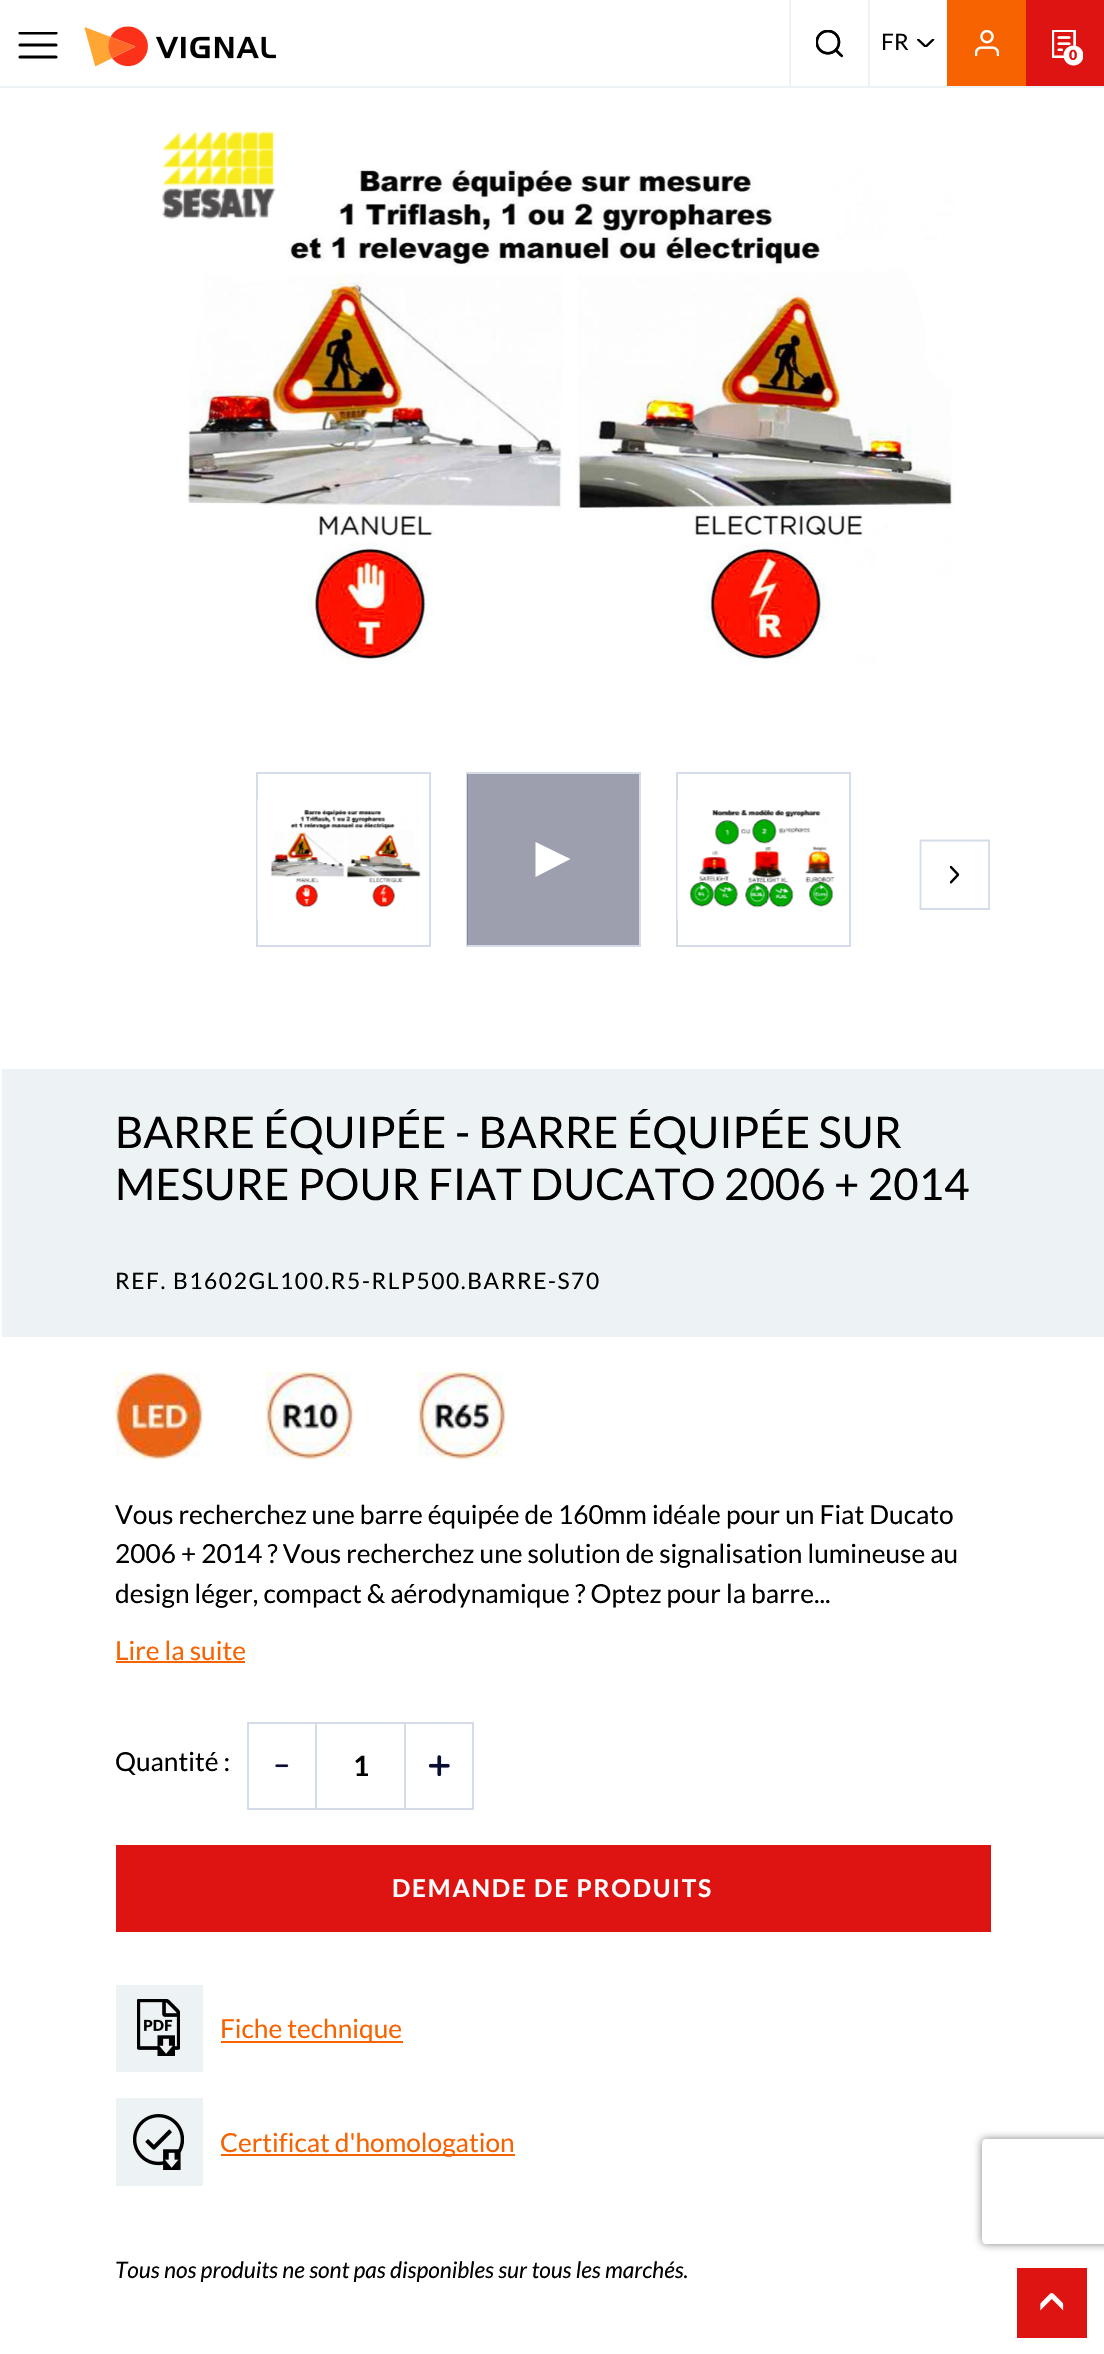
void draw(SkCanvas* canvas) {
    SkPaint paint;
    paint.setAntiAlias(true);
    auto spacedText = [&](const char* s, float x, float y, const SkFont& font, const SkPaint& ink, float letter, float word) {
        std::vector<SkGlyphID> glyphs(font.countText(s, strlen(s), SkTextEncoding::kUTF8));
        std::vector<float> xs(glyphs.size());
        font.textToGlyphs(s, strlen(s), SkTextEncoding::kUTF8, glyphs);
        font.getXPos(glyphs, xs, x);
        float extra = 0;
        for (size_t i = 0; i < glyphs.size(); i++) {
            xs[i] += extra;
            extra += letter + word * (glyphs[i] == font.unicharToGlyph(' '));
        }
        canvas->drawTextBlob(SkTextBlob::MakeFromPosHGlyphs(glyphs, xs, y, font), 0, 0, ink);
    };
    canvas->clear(0xFFFFFFFF);
    paint.setColor(0xFFEDF2F4);
    canvas->drawRect(SkRect::MakeXYWH(0, 86, 1104, 2), paint);
    paint.setStyle(SkPaint::kStroke_Style);
    paint.setStrokeWidth(3.1f);
    paint.setStrokeCap(SkPaint::kRound_Cap);
    paint.setStrokeJoin(SkPaint::kRound_Join);
    paint.setColor(0xFF000000);
    canvas->drawPath(SkPathBuilder().moveTo(20, 45).lineTo(56, 45).detach(), paint);
    canvas->save();
    canvas->clipRect(SkRect::MakeXYWH(18, 32, 40, 28));
    canvas->drawPath(SkPathBuilder().moveTo(20, 33).lineTo(56, 33).detach(), paint);
    canvas->restore();
    canvas->drawPath(SkPathBuilder().moveTo(20, 57).lineTo(56, 57).detach(), paint);
    canvas->drawImageRect(SkImages::DeferredFromEncodedData(SkData::MakeFromFileName("img1.png")), SkRect::MakeXYWH(84, 26, 192, 41), SkSamplingOptions());
    paint.setStyle(SkPaint::kFill_Style);
    paint.setColor(0xFFEDF2F4);
    canvas->drawRect(SkRect::MakeXYWH(789, 0, 2, 86), paint);
    canvas->drawImageRect(SkImages::DeferredFromEncodedData(SkData::MakeFromFileName("img2.png")), SkRect::MakeXYWH(816, 30, 27, 26), SkSamplingOptions());
    canvas->drawImageRect(SkImages::DeferredFromEncodedData(SkData::MakeFromFileName("img3.png")), SkRect::MakeXYWH(816, 30, 27, 28), SkSamplingOptions());
    canvas->drawRect(SkRect::MakeXYWH(868, 0, 2, 86), paint);
    SkFont font1(fontMgr->matchFamilyStyle("Lato", SkFontStyle::Normal()), 22.75f);
    font1.setSubpixel(true);
    paint.setColor(0xFF000000);
    canvas->drawString("FR", 881, 50, font1, paint);
    canvas->drawImageRect(SkImages::DeferredFromEncodedData(SkData::MakeFromFileName("img4.png")), SkRect::MakeXYWH(917, 39, 18, 8), SkSamplingOptions());
    paint.setColor(0xFFF76301);
    canvas->drawRect(SkRect::MakeXYWH(947, 0, 79, 86), paint);
    canvas->drawImageRect(SkImages::DeferredFromEncodedData(SkData::MakeFromFileName("img5.png")), SkRect::MakeXYWH(975, 30, 24, 26), SkSamplingOptions());
    paint.setColor(0xFFDE1412);
    canvas->drawRect(SkRect::MakeXYWH(1026, 0, 78, 86), paint);
    canvas->drawImageRect(SkImages::DeferredFromEncodedData(SkData::MakeFromFileName("img6.png")), SkRect::MakeXYWH(1052, 30, 31, 36), SkSamplingOptions());
    SkFont font2(fontMgr->matchFamilyStyle("Lato", SkFontStyle(900, SkFontStyle::kNormal_Width, SkFontStyle::kUpright_Slant)), 14);
    font2.setSubpixel(true);
    canvas->drawString("0", 1069, 60, font2, paint);
    canvas->drawImageRect(SkImages::DeferredFromEncodedData(SkData::MakeFromFileName("img8.png")), SkRect::MakeXYWH(186, 169, 769, 496), SkSamplingOptions());
    canvas->drawImageRect(SkImages::DeferredFromEncodedData(SkData::MakeFromFileName("img7.png")), SkRect::MakeXYWH(162, 131, 114, 88), SkSamplingOptions());
    paint.setStyle(SkPaint::kStroke_Style);
    paint.setStrokeWidth(2);
    paint.setStrokeCap(SkPaint::kButt_Cap);
    paint.setStrokeJoin(SkPaint::kMiter_Join);
    paint.setColor(0xFFD4DCE9);
    canvas->drawRect(SkRect::MakeXYWH(257, 773, 173, 173), paint);
    canvas->drawImageRect(SkImages::DeferredFromEncodedData(SkData::MakeFromFileName("img9.png")), SkRect::MakeXYWH(257, 799, 164, 121), SkSamplingOptions());
    canvas->drawRect(SkRect::MakeXYWH(467, 773, 173, 173), paint);
    paint.setStyle(SkPaint::kFill_Style);
    paint.setColor(0x660A0E34);
    canvas->drawRect(SkRect::MakeXYWH(467, 774, 172, 171), paint);
    paint.setColor(0xFFFFFFFF);
    canvas->drawPath(SkPathBuilder().moveTo(535.5f, 877).lineTo(535.5f, 842).lineTo(570.5f, 859).close().detach(), paint);
    paint.setStyle(SkPaint::kStroke_Style);
    paint.setColor(0xFFD4DCE9);
    canvas->drawRect(SkRect::MakeXYWH(677, 773, 173, 173), paint);
    canvas->drawImageRect(SkImages::DeferredFromEncodedData(SkData::MakeFromFileName("img10.png")), SkRect::MakeXYWH(677, 799, 158, 121), SkSamplingOptions());
    canvas->drawImageRect(SkImages::DeferredFromEncodedData(SkData::MakeFromFileName("img11.png")), SkRect::MakeXYWH(949, 865, 11, 19), SkSamplingOptions());
    paint.setStrokeWidth(1.8f);
    canvas->drawPath(SkPathBuilder().moveTo(920.5f, 909).lineTo(920.5f, 840.5f).lineTo(989, 840.5f).lineTo(989, 909).close().detach(), paint);
    paint.setStyle(SkPaint::kFill_Style);
    paint.setColor(0xFFEDF2F4);
    canvas->drawRect(SkRect::MakeXYWH(2, 1069, 1102, 268), paint);
    SkFont font3(fontMgr->matchFamilyStyle("Lato", SkFontStyle::Normal()), 43.75f);
    font3.setSubpixel(true);
    paint.setColor(0xFF000000);
    canvas->drawString("BARRE ÉQUIPÉE - BARRE ÉQUIPÉE SUR", 115, 1148, font3, paint);
    canvas->drawString("MESURE POUR FIAT DUCATO 2006 + 2014", 115, 1200, font3, paint);
    spacedText("REF. B1602GL100.R5-RLP500.BARRE-S70", 115, 1289, font1, paint, 1.6f, 0);
    canvas->drawImageRect(SkImages::DeferredFromEncodedData(SkData::MakeFromFileName("img12.png")), SkRect::MakeXYWH(115, 1372, 88, 88), SkSamplingOptions());
    canvas->drawImageRect(SkImages::DeferredFromEncodedData(SkData::MakeFromFileName("img13.png")), SkRect::MakeXYWH(266, 1372, 88, 88), SkSamplingOptions());
    canvas->drawImageRect(SkImages::DeferredFromEncodedData(SkData::MakeFromFileName("img14.png")), SkRect::MakeXYWH(418, 1372, 88, 88), SkSamplingOptions());
    SkFont font4(fontMgr->matchFamilyStyle("Lato", SkFontStyle::Normal()), 26.25f);
    font4.setSubpixel(true);
    canvas->drawString("Vous recherchez une barre équipée de 160mm idéale pour un Fiat Ducato", 115, 1524, font4, paint);
    canvas->drawString("2006 + 2014 ? Vous recherchez une solution de signalisation lumineuse au", 115, 1563, font4, paint);
    canvas->drawString("design léger, compact & aérodynamique ? Optez pour la barre...", 115, 1603, font4, paint);
    paint.setColor(0xFFF76301);
    canvas->drawString("Lire la suite", 115, 1660, font4, paint);
    canvas->drawRect(SkRect::MakeXYWH(116, 1661, 129, 2), paint);
    paint.setColor(0xFF000000);
    canvas->drawString("Quantité :", 115, 1771, font4, paint);
    canvas->drawImageRect(SkImages::DeferredFromEncodedData(SkData::MakeFromFileName("img15.png")), SkRect::MakeXYWH(275, 1764, 14, 4), SkSamplingOptions());
    paint.setStyle(SkPaint::kStroke_Style);
    paint.setStrokeWidth(2);
    paint.setColor(0xFFD4DCE9);
    canvas->drawRect(SkRect::MakeXYWH(248, 1723, 68, 86), paint);
    paint.setStyle(SkPaint::kFill_Style);
    canvas->drawRect(SkRect::MakeXYWH(317, 1722, 87, 2), paint);
    canvas->drawRect(SkRect::MakeXYWH(317, 1808, 87, 2), paint);
    SkFont font5(fontMgr->matchFamilyStyle("Lato", SkFontStyle::Bold()), 28);
    font5.setSubpixel(true);
    paint.setColor(0xFF000000);
    canvas->drawString("1", 353, 1776, font5, paint);
    canvas->drawImageRect(SkImages::DeferredFromEncodedData(SkData::MakeFromFileName("img16.png")), SkRect::MakeXYWH(429, 1755, 21, 21), SkSamplingOptions());
    paint.setStyle(SkPaint::kStroke_Style);
    paint.setColor(0xFFD4DCE9);
    canvas->drawRect(SkRect::MakeXYWH(405, 1723, 68, 86), paint);
    paint.setStyle(SkPaint::kFill_Style);
    paint.setColor(0xFFDE1412);
    canvas->drawRect(SkRect::MakeXYWH(116, 1845, 875, 87), paint);
    SkFont font6(fontMgr->matchFamilyStyle("Lato", SkFontStyle::Bold()), 24.5f);
    font6.setSubpixel(true);
    paint.setColor(0xFFFFFFFF);
    spacedText("DEMANDE DE PRODUITS", 392, 1897, font6, paint, 1.75f, 0);
    paint.setColor(0xFFEDF2F4);
    canvas->drawRect(SkRect::MakeXYWH(116, 1985, 87, 87), paint);
    canvas->drawImageRect(SkImages::DeferredFromEncodedData(SkData::MakeFromFileName("img17.png")), SkRect::MakeXYWH(137, 1999, 43, 57), SkSamplingOptions());
    paint.setColor(0xFFF76301);
    canvas->drawRect(SkRect::MakeXYWH(221, 2041, 182, 2), paint);
    canvas->drawString("Fiche technique", 220, 2038, font4, paint);
    paint.setColor(0xFFEDF2F4);
    canvas->drawRect(SkRect::MakeXYWH(116, 2098, 87, 88), paint);
    canvas->drawImageRect(SkImages::DeferredFromEncodedData(SkData::MakeFromFileName("img18.png")), SkRect::MakeXYWH(133, 2114, 51, 56), SkSamplingOptions());
    paint.setColor(0xFFF76301);
    canvas->drawRect(SkRect::MakeXYWH(221, 2154, 294, 2), paint);
    canvas->drawString("Certificat d'homologation", 220, 2152, font4, paint);
    SkFont font7(fontMgr->matchFamilyStyle("Lato", SkFontStyle::Italic()), 22.75f);
    font7.setSubpixel(true);
    paint.setColor(0xFF000000);
    canvas->drawString("Tous nos produits ne sont pas disponibles sur tous les marchés.", 115, 2278, font7, paint);
    canvas->save();
    canvas->clipPath(SkPathBuilder(SkPathFillType::kEvenOdd).moveTo(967, 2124).lineTo(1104, 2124).lineTo(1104, 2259).lineTo(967, 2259).close().moveTo(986, 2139).lineTo(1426, 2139).cubicTo(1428, 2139, 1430, 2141, 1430, 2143).lineTo(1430, 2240).cubicTo(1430, 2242, 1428, 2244, 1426, 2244).lineTo(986, 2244).cubicTo(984, 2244, 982, 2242, 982, 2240).lineTo(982, 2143).cubicTo(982, 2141, 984, 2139, 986, 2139).close().detach(), true);
    paint.setColor(0xFF808080);
    paint.setMaskFilter(SkMaskFilter::MakeBlur(kNormal_SkBlurStyle, 4.5f));
    canvas->drawRoundRect(SkRect::MakeXYWH(982, 2139, 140, 105), 4, 4, paint);
    paint.setMaskFilter(nullptr);
    canvas->restore();
    paint.setColor(0xFFDE1412);
    canvas->drawRect(SkRect::MakeXYWH(1017, 2268, 70, 70), paint);
    canvas->drawImageRect(SkImages::DeferredFromEncodedData(SkData::MakeFromFileName("img19.png")), SkRect::MakeXYWH(1040, 2293, 24, 18), SkSamplingOptions());
}
